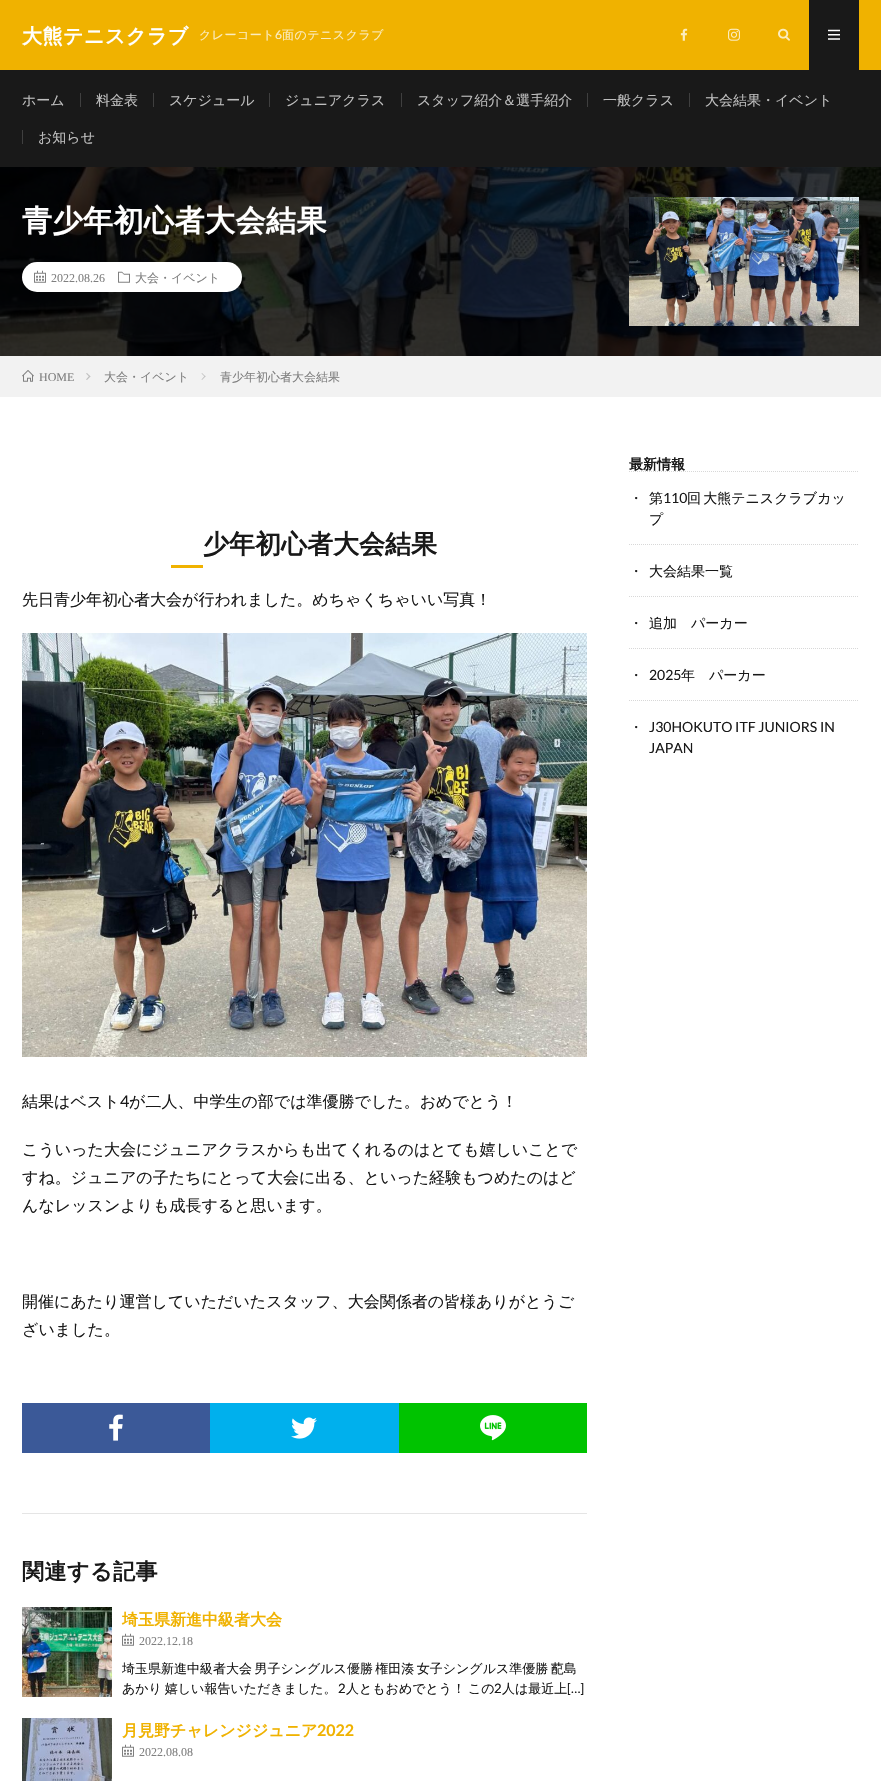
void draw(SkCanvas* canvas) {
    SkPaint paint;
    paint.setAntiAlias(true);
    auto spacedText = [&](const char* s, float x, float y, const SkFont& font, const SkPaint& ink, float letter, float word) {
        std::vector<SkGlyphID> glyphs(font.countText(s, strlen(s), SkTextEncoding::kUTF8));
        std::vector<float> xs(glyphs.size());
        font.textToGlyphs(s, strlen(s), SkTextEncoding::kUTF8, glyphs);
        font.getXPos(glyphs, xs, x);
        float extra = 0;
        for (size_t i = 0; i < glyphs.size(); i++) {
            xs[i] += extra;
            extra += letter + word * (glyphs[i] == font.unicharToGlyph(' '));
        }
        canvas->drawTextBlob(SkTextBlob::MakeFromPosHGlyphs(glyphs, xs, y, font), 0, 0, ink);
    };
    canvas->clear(0xFFFFFFFF);
    paint.setColor(0xFFF0B200);
    canvas->drawRect(SkRect::MakeXYWH(0, 0, 881, 70), paint);
    SkFont font1(fontMgr->matchFamilyStyle("WenQuanYi Zen Hei", SkFontStyle::Bold()), 20);
    font1.setSubpixel(true);
    paint.setColor(0xFFFFFFFF);
    spacedText("大熊テニスクラブ", 22, 43, font1, paint, 0.5f, 0);
    SkFont font2(fontMgr->matchFamilyStyle("WenQuanYi Zen Hei", SkFontStyle(500, SkFontStyle::kNormal_Width, SkFontStyle::kUpright_Slant)), 12);
    font2.setSubpixel(true);
    paint.setColor(0xFFFBECBF);
    spacedText("クレーコート", 199, 39, font2, paint, 0.5f, 0);
    SkFont font3(fontMgr->matchFamilyStyle("Lato", SkFontStyle::Normal()), 12);
    font3.setSubpixel(true);
    spacedText("6", 275, 39, font3, paint, 0.5f, 0);
    spacedText("面のテニスクラブ", 282, 39, font2, paint, 0.5f, 0);
    canvas->drawImageRect(SkImages::DeferredFromEncodedData(SkData::MakeFromFileName("img1.png")), SkRect::MakeXYWH(680, 28, 8, 13), SkSamplingOptions());
    canvas->drawImageRect(SkImages::DeferredFromEncodedData(SkData::MakeFromFileName("img2.png")), SkRect::MakeXYWH(728, 28, 12, 13), SkSamplingOptions());
    canvas->drawImageRect(SkImages::DeferredFromEncodedData(SkData::MakeFromFileName("img3.png")), SkRect::MakeXYWH(778, 28, 12, 13), SkSamplingOptions());
    paint.setColor(0xFF191919);
    canvas->drawRect(SkRect::MakeXYWH(809, 0, 50, 70), paint);
    canvas->drawImageRect(SkImages::DeferredFromEncodedData(SkData::MakeFromFileName("img4.png")), SkRect::MakeXYWH(828, 29, 12, 11), SkSamplingOptions());
    canvas->drawRect(SkRect::MakeXYWH(0, 70, 881, 97), paint);
    SkFont font4(fontMgr->matchFamilyStyle("WenQuanYi Zen Hei", SkFontStyle(500, SkFontStyle::kNormal_Width, SkFontStyle::kUpright_Slant)), 14);
    font4.setSubpixel(true);
    paint.setColor(0xFFBFBFBF);
    canvas->drawString("ホーム", 22, 105, font4, paint);
    paint.setColor(0xFF3F3F3F);
    canvas->drawRect(SkRect::MakeXYWH(80, 93, 1, 14), paint);
    paint.setColor(0xFFBFBFBF);
    canvas->drawString("料金表", 96, 105, font4, paint);
    paint.setColor(0xFF3F3F3F);
    canvas->drawRect(SkRect::MakeXYWH(153, 93, 1, 14), paint);
    paint.setColor(0xFFBFBFBF);
    canvas->drawString("スケジュール", 169, 105, font4, paint);
    paint.setColor(0xFF3F3F3F);
    canvas->drawRect(SkRect::MakeXYWH(269, 93, 1, 14), paint);
    paint.setColor(0xFFBFBFBF);
    canvas->drawString("ジュニアクラス", 285, 105, font4, paint);
    paint.setColor(0xFF3F3F3F);
    canvas->drawRect(SkRect::MakeXYWH(401, 93, 1, 14), paint);
    paint.setColor(0xFFBFBFBF);
    canvas->drawString("スタッフ紹介＆選手紹介", 417, 105, font4, paint);
    paint.setColor(0xFF3F3F3F);
    canvas->drawRect(SkRect::MakeXYWH(587, 93, 1, 14), paint);
    paint.setColor(0xFFBFBFBF);
    canvas->drawString("一般クラス", 603, 105, font4, paint);
    paint.setColor(0xFF3F3F3F);
    canvas->drawRect(SkRect::MakeXYWH(689, 93, 1, 14), paint);
    paint.setColor(0xFFBFBFBF);
    canvas->drawString("大会結果・イベント", 705, 105, font4, paint);
    paint.setColor(0xFF3F3F3F);
    canvas->drawRect(SkRect::MakeXYWH(22, 130, 1, 14), paint);
    paint.setColor(0xFFBFBFBF);
    canvas->drawString("お知らせ", 38, 142, font4, paint);
    canvas->drawImageRect(SkImages::DeferredFromEncodedData(SkData::MakeFromFileName("img5.png")), SkRect::MakeXYWH(0, 167, 881, 189), SkSamplingOptions());
    SkFont font5(fontMgr->matchFamilyStyle("WenQuanYi Zen Hei", SkFontStyle::Bold()), 30);
    font5.setSubpixel(true);
    paint.setColor(0xFFFFFFFF);
    spacedText("青少年初心者大会結果", 22, 231, font5, paint, 0.5f, 0);
    canvas->drawRoundRect(SkRect::MakeXYWH(22, 262, 220, 30), 15, 15, paint);
    canvas->drawImageRect(SkImages::DeferredFromEncodedData(SkData::MakeFromFileName("img6.png")), SkRect::MakeXYWH(34, 270, 12, 13), SkSamplingOptions());
    SkFont font6(fontMgr->matchFamilyStyle("Liberation Serif", SkFontStyle::Normal()), 12);
    font6.setSubpixel(true);
    paint.setColor(0xFF7F7F7F);
    canvas->drawString("2022.08.26", 51, 282, font6, paint);
    canvas->drawImageRect(SkImages::DeferredFromEncodedData(SkData::MakeFromFileName("img7.png")), SkRect::MakeXYWH(118, 271, 12, 12), SkSamplingOptions());
    canvas->drawString("大会・イベント", 135, 282, font2, paint);
    canvas->drawImageRect(SkImages::DeferredFromEncodedData(SkData::MakeFromFileName("img8.png")), SkRect::MakeXYWH(629, 197, 230, 129), SkSamplingOptions());
    paint.setColor(0xFFF2F2F2);
    canvas->drawRect(SkRect::MakeXYWH(0, 356, 881, 41), paint);
    canvas->drawImageRect(SkImages::DeferredFromEncodedData(SkData::MakeFromFileName("img9.png")), SkRect::MakeXYWH(22, 370, 12, 12), SkSamplingOptions());
    paint.setColor(0xFF7F7F7F);
    canvas->drawString("HOME", 39, 381, font6, paint);
    paint.setColor(0xFFBFBFBF);
    canvas->drawPath(SkPathBuilder().moveTo(87, 373).lineTo(90.5f, 376.5f).lineTo(89.5f, 377).lineTo(86, 373.5f).close().detach(), paint);
    canvas->drawPath(SkPathBuilder().moveTo(89.5f, 375.5f).lineTo(90.5f, 376.5f).lineTo(87, 380).lineTo(86, 379.5f).close().detach(), paint);
    paint.setColor(0xFF7F7F7F);
    canvas->drawString("大会・イベント", 104, 381, font2, paint);
    paint.setColor(0xFFBFBFBF);
    canvas->drawPath(SkPathBuilder().moveTo(202, 373).lineTo(205.5f, 376.5f).lineTo(205, 377).lineTo(201.5f, 373.5f).close().detach(), paint);
    canvas->drawPath(SkPathBuilder().moveTo(205, 375.5f).lineTo(205.5f, 376.5f).lineTo(202, 380).lineTo(201.5f, 379.5f).close().detach(), paint);
    paint.setColor(0xFF7F7F7F);
    canvas->drawString("青少年初心者大会結果", 220, 381, font2, paint);
    SkFont font7(fontMgr->matchFamilyStyle("Noto Sans", SkFontStyle(100, SkFontStyle::kNormal_Width, SkFontStyle::kUpright_Slant)), 32);
    font7.setSubpixel(true);
    paint.setColor(0xFFF0B200);
    canvas->drawString("青", 171, 553, font7, paint);
    canvas->drawRect(SkRect::MakeXYWH(171, 565, 32, 3), paint);
    SkFont font8(fontMgr->matchFamilyStyle("WenQuanYi Zen Hei", SkFontStyle::Bold()), 26);
    font8.setSubpixel(true);
    paint.setColor(0xFF191919);
    canvas->drawString("少年初心者大会結果", 203, 553, font8, paint);
    SkFont font9(fontMgr->matchFamilyStyle("WenQuanYi Zen Hei", SkFontStyle(500, SkFontStyle::kNormal_Width, SkFontStyle::kUpright_Slant)), 16);
    font9.setSubpixel(true);
    canvas->drawString("先日青少年初心者大会が行われました。めちゃくちゃいい写真！", 22, 605, font9, paint);
    canvas->drawImageRect(SkImages::DeferredFromEncodedData(SkData::MakeFromFileName("img10.png")), SkRect::MakeXYWH(22, 633, 565, 424), SkSamplingOptions());
    canvas->drawString("結果はベスト", 22, 1107, font9, paint);
    SkFont font10(fontMgr->matchFamilyStyle("Lato", SkFontStyle::Normal()), 16);
    font10.setSubpixel(true);
    canvas->drawString("4", 120, 1107, font10, paint);
    canvas->drawString("が二人、中学生の部では準優勝でした。おめでとう！", 129, 1107, font9, paint);
    canvas->drawString("こういった大会にジュニアクラスからも出てくれるのはとても嬉しいことで", 22, 1155, font9, paint);
    canvas->drawString("すね。ジュニアの子たちにとって大会に出る、といった経験もつめたのはど", 22, 1183, font9, paint);
    canvas->drawString("んなレッスンよりも成長すると思います。", 22, 1211, font9, paint);
    canvas->drawString("開催にあたり運営していただいたスタッフ、大会関係者の皆様ありがとうご", 22, 1307, font9, paint);
    canvas->drawString("ざいました。", 22, 1335, font9, paint);
    paint.setColor(0xFF3B5998);
    canvas->drawRect(SkRect::MakeXYWH(22, 1403, 188, 50), paint);
    canvas->drawImageRect(SkImages::DeferredFromEncodedData(SkData::MakeFromFileName("img11.png")), SkRect::MakeXYWH(109, 1414, 14, 27), SkSamplingOptions());
    paint.setColor(0xFF00B0ED);
    canvas->drawRect(SkRect::MakeXYWH(210, 1403, 189, 50), paint);
    canvas->drawImageRect(SkImages::DeferredFromEncodedData(SkData::MakeFromFileName("img12.png")), SkRect::MakeXYWH(291, 1417, 26, 22), SkSamplingOptions());
    paint.setColor(0xFF00C300);
    canvas->drawRect(SkRect::MakeXYWH(399, 1403, 188, 50), paint);
    canvas->drawImageRect(SkImages::DeferredFromEncodedData(SkData::MakeFromFileName("img13.png")), SkRect::MakeXYWH(480, 1415, 26, 26), SkSamplingOptions());
    paint.setColor(0xFFE5E5E5);
    canvas->drawRect(SkRect::MakeXYWH(22, 1513, 565, 1), paint);
    SkFont font11(fontMgr->matchFamilyStyle("WenQuanYi Zen Hei", SkFontStyle::Bold()), 22);
    font11.setSubpixel(true);
    paint.setColor(0xFF191919);
    spacedText("関連する記事", 22, 1579, font11, paint, 0.5f, 0);
    canvas->drawImageRect(SkImages::DeferredFromEncodedData(SkData::MakeFromFileName("img14.png")), SkRect::MakeXYWH(22, 1607, 90, 90), SkSamplingOptions());
    SkFont font12(fontMgr->matchFamilyStyle("WenQuanYi Zen Hei", SkFontStyle::Bold()), 16);
    font12.setSubpixel(true);
    paint.setColor(0xFFF0B200);
    canvas->drawString("埼玉県新進中級者大会", 122, 1625, font12, paint);
    canvas->drawImageRect(SkImages::DeferredFromEncodedData(SkData::MakeFromFileName("img6.png")), SkRect::MakeXYWH(122, 1633, 12, 13), SkSamplingOptions());
    paint.setColor(0xFF7F7F7F);
    canvas->drawString("2022.12.18", 139, 1645, font6, paint);
    SkFont font13(fontMgr->matchFamilyStyle("WenQuanYi Zen Hei", SkFontStyle(500, SkFontStyle::kNormal_Width, SkFontStyle::kUpright_Slant)), 13);
    font13.setSubpixel(true);
    paint.setColor(0xFF191919);
    spacedText("埼玉県新進中級者大会 男子シングルス優勝 権田湊 女子シングルス準優勝 蓜島", 122, 1673, font13, paint, 0, -1.5f);
    spacedText("あかり 嬉しい報告いただきました。", 122, 1693, font13, paint, 0, -1);
    SkFont font14(fontMgr->matchFamilyStyle("Lato", SkFontStyle::Normal()), 13);
    font14.setSubpixel(true);
    canvas->drawString("2", 338, 1693, font14, paint);
    spacedText("人ともおめでとう！ この", 346, 1693, font13, paint, 0, -1);
    canvas->drawString("2", 494, 1693, font14, paint);
    canvas->drawString("人は最近上", 502, 1693, font13, paint);
    canvas->drawString("[…]", 567, 1693, font14, paint);
    canvas->drawImageRect(SkImages::DeferredFromEncodedData(SkData::MakeFromFileName("img15.png")), SkRect::MakeXYWH(22, 1718, 90, 63), SkSamplingOptions());
    paint.setColor(0xFFF0B200);
    canvas->drawString("月見野チャレンジジュニア", 122, 1736, font12, paint);
    SkFont font15(fontMgr->matchFamilyStyle("Lato", SkFontStyle::Bold()), 16);
    font15.setSubpixel(true);
    canvas->drawString("2022", 317, 1736, font15, paint);
    canvas->drawImageRect(SkImages::DeferredFromEncodedData(SkData::MakeFromFileName("img6.png")), SkRect::MakeXYWH(122, 1744, 12, 13), SkSamplingOptions());
    paint.setColor(0xFF7F7F7F);
    canvas->drawString("2022.08.08", 139, 1756, font6, paint);
    SkFont font16(fontMgr->matchFamilyStyle("WenQuanYi Zen Hei", SkFontStyle::Bold()), 14);
    font16.setSubpixel(true);
    paint.setColor(0xFF191919);
    canvas->drawString("最新情報", 629, 469, font16, paint);
    paint.setStyle(SkPaint::kStroke_Style);
    paint.setStrokeWidth(1);
    paint.setColor(0xFFD8D8D8);
    paint.setPathEffect(SkDashPathEffect::Make({{1, 1}}, 0));
    canvas->drawPath(SkPathBuilder().moveTo(629, 471.5f).lineTo(859, 471.5f).detach(), paint);
    paint.setPathEffect(nullptr);
    paint.setStyle(SkPaint::kFill_Style);
    paint.setColor(0xFF191919);
    canvas->drawString("・", 629, 503, font4, paint);
    canvas->drawString("第", 649, 503, font4, paint);
    SkFont font17(fontMgr->matchFamilyStyle("Lato", SkFontStyle::Normal()), 14);
    font17.setSubpixel(true);
    canvas->drawString("110", 663, 503, font17, paint);
    spacedText("回 大熊テニスクラブカッ", 687, 503, font4, paint, 0, -2);
    canvas->drawString("プ", 649, 524, font4, paint);
    paint.setStyle(SkPaint::kStroke_Style);
    paint.setColor(0xFFD8D8D8);
    paint.setPathEffect(SkDashPathEffect::Make({{1, 1}}, 0));
    canvas->drawPath(SkPathBuilder().moveTo(629, 544.5f).lineTo(859, 544.5f).detach(), paint);
    paint.setPathEffect(nullptr);
    paint.setStyle(SkPaint::kFill_Style);
    paint.setColor(0xFF191919);
    canvas->drawString("・", 629, 576, font4, paint);
    canvas->drawString("大会結果一覧", 649, 576, font4, paint);
    paint.setStyle(SkPaint::kStroke_Style);
    paint.setColor(0xFFD8D8D8);
    paint.setPathEffect(SkDashPathEffect::Make({{1, 1}}, 0));
    canvas->drawPath(SkPathBuilder().moveTo(629, 596.5f).lineTo(859, 596.5f).detach(), paint);
    paint.setPathEffect(nullptr);
    paint.setStyle(SkPaint::kFill_Style);
    paint.setColor(0xFF191919);
    canvas->drawString("・", 629, 628, font4, paint);
    canvas->drawString("追加　パーカー", 649, 628, font4, paint);
    paint.setStyle(SkPaint::kStroke_Style);
    paint.setColor(0xFFD8D8D8);
    paint.setPathEffect(SkDashPathEffect::Make({{1, 1}}, 0));
    canvas->drawPath(SkPathBuilder().moveTo(629, 648.5f).lineTo(859, 648.5f).detach(), paint);
    paint.setPathEffect(nullptr);
    paint.setStyle(SkPaint::kFill_Style);
    paint.setColor(0xFF191919);
    canvas->drawString("・", 629, 680, font4, paint);
    canvas->drawString("2025", 649, 680, font17, paint);
    canvas->drawString("年　パーカー", 681, 680, font4, paint);
    paint.setStyle(SkPaint::kStroke_Style);
    paint.setColor(0xFFD8D8D8);
    paint.setPathEffect(SkDashPathEffect::Make({{1, 1}}, 0));
    canvas->drawPath(SkPathBuilder().moveTo(629, 700.5f).lineTo(859, 700.5f).detach(), paint);
    paint.setPathEffect(nullptr);
    paint.setStyle(SkPaint::kFill_Style);
    paint.setColor(0xFF191919);
    canvas->drawString("・", 629, 732, font4, paint);
    canvas->drawString("J30HOKUTO ITF JUNIORS IN", 649, 732, font17, paint);
    canvas->drawString("JAPAN", 649, 753, font17, paint);
}
